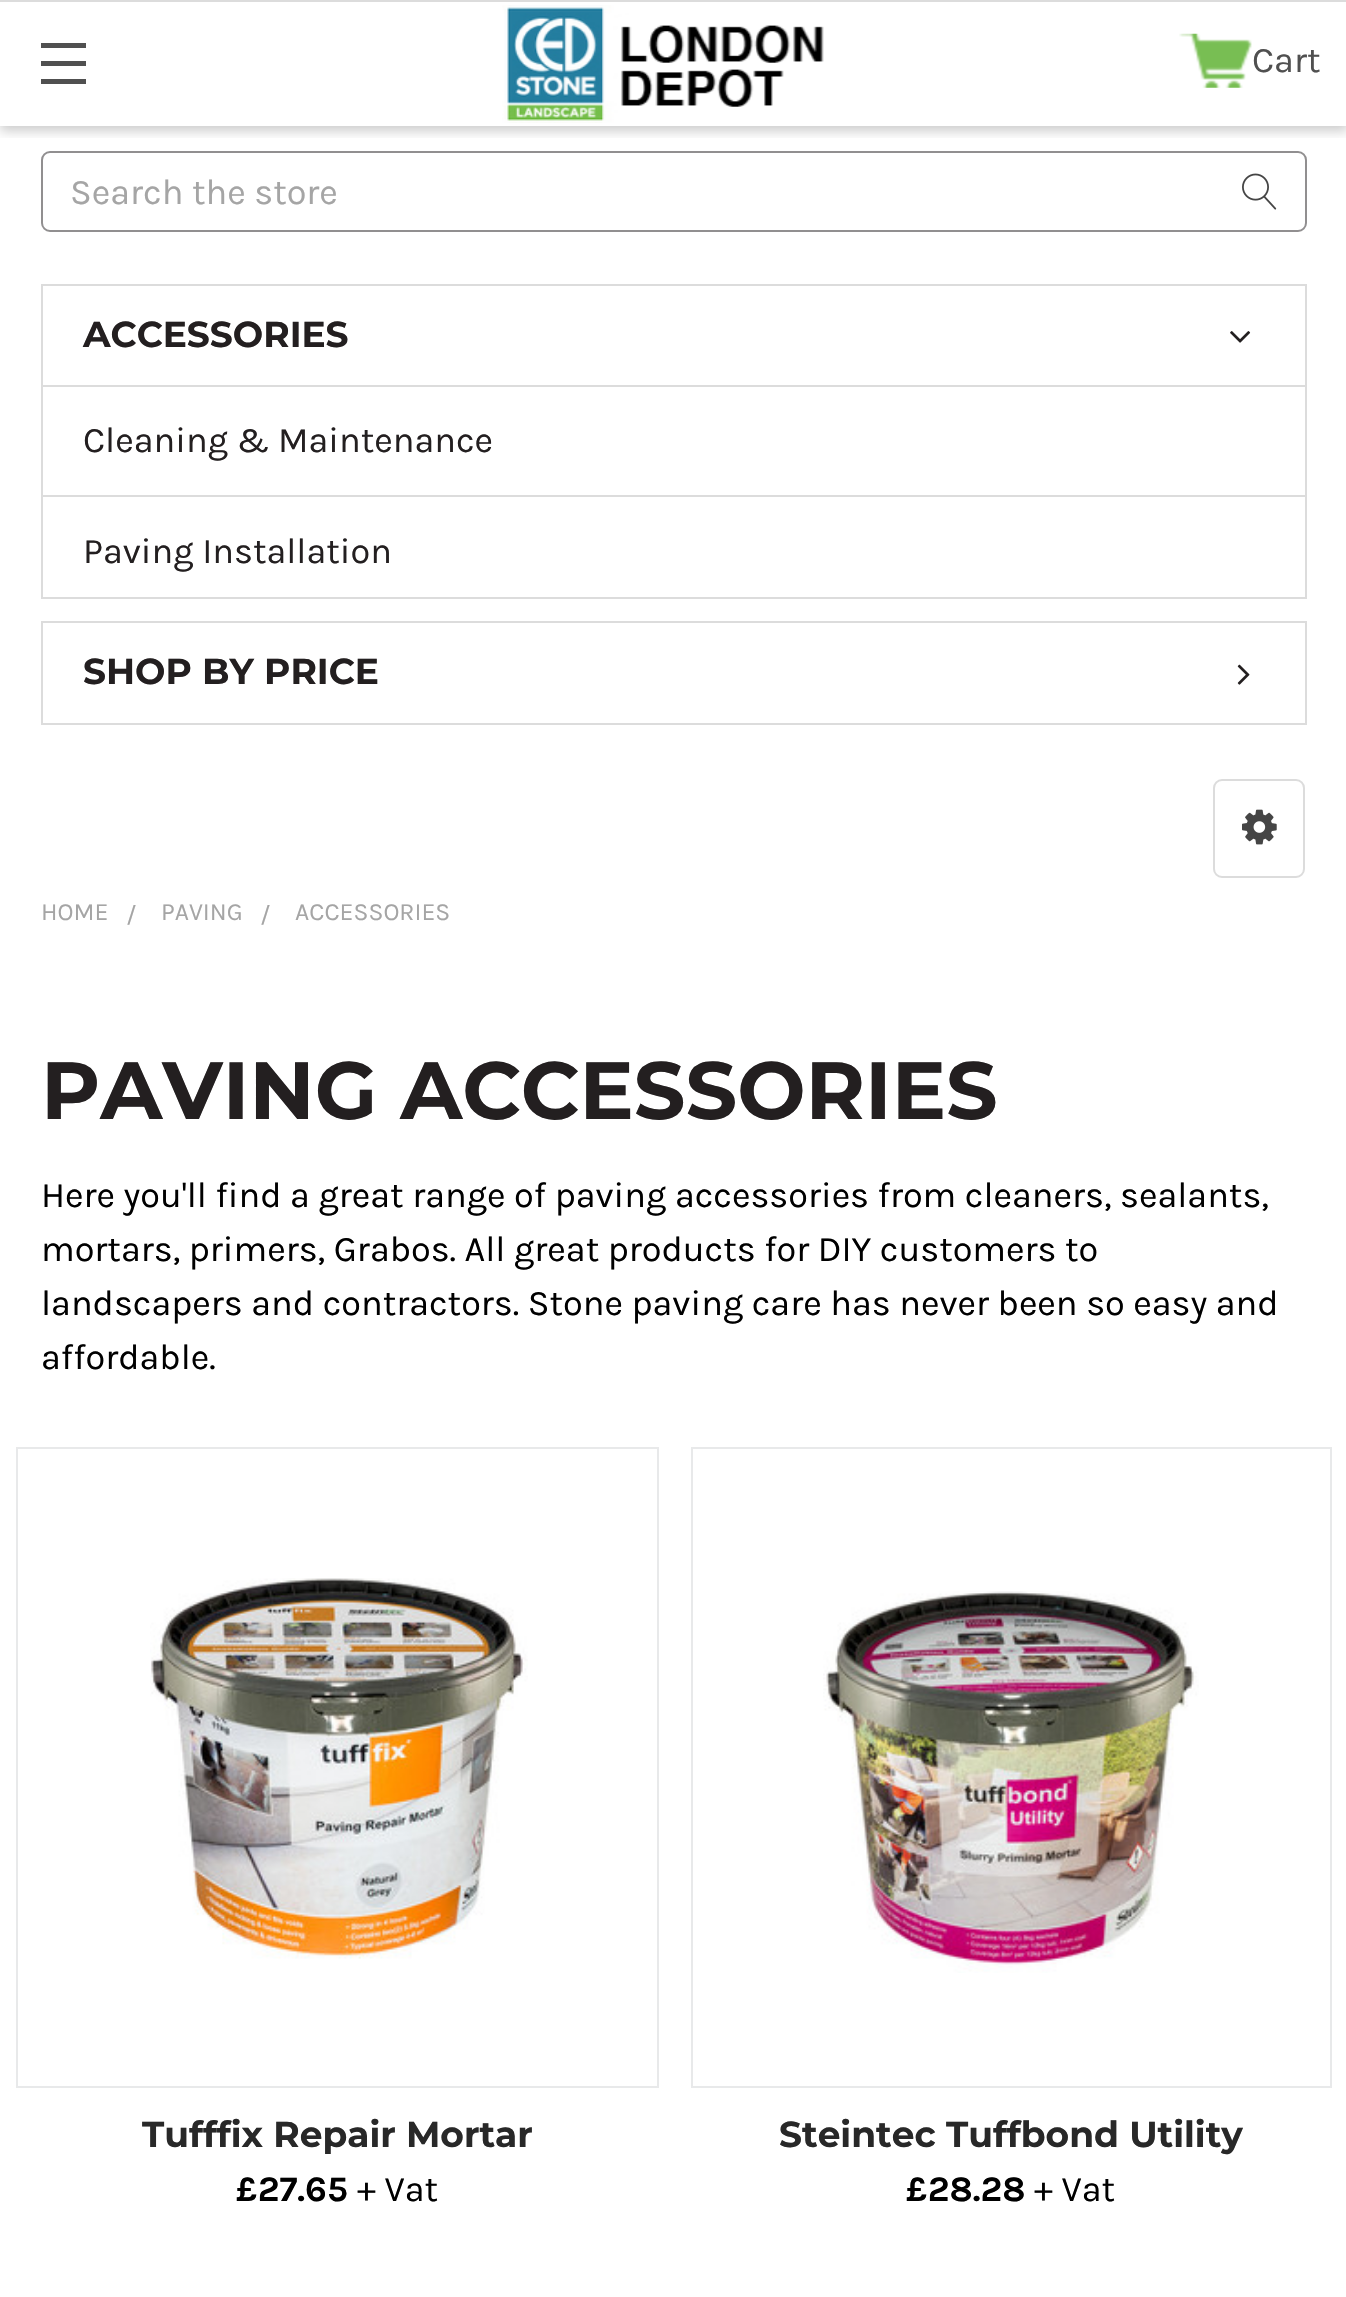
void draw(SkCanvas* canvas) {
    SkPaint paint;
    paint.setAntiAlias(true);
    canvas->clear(0xFFFFFFFF);
    canvas->save();
    canvas->clipRect(SkRect::MakeXYWH(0, 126, 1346, 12));
    paint.setColor(0x33000000);
    paint.setMaskFilter(SkMaskFilter::MakeBlur(kNormal_SkBlurStyle, 5.5f));
    canvas->drawRect(SkRect::MakeXYWH(0, 5, 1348, 126), paint);
    paint.setMaskFilter(nullptr);
    canvas->restore();
    paint.setColor(0xFFDCDCDC);
    canvas->drawRect(SkRect::MakeXYWH(0, 0, 1346, 2), paint);
    paint.setColor(0xFF505050);
    canvas->drawRect(SkRect::MakeXYWH(41, 61, 45, 5), paint);
    canvas->drawRect(SkRect::MakeXYWH(41, 43, 45, 5), paint);
    canvas->drawRect(SkRect::MakeXYWH(41, 79, 45, 5), paint);
    canvas->drawImageRect(SkImages::DeferredFromEncodedData(SkData::MakeFromFileName("img1.png")), SkRect::MakeXYWH(502, 5, 322, 118), SkSamplingOptions());
    canvas->drawImageRect(SkImages::DeferredFromEncodedData(SkData::MakeFromFileName("img2.png")), SkRect::MakeXYWH(1179, 33, 73, 55), SkSamplingOptions());
    SkFont font1(fontMgr->matchFamilyStyle("Karla", SkFontStyle::Normal()), 36);
    font1.setSubpixel(true);
    canvas->drawString("Cart", 1252, 72, font1, paint);
    paint.setStyle(SkPaint::kStroke_Style);
    paint.setStrokeWidth(2);
    paint.setColor(0xFF918F90);
    canvas->drawRoundRect(SkRect::MakeXYWH(42, 152, 1264, 79), 8, 8, paint);
    paint.setStyle(SkPaint::kFill_Style);
    paint.setColor(0xFFA5A5A5);
    canvas->drawString("Search the store", 70, 204, font1, paint);
    canvas->drawImageRect(SkImages::DeferredFromEncodedData(SkData::MakeFromFileName("img3.png")), SkRect::MakeXYWH(1242, 173, 35, 37), SkSamplingOptions());
    paint.setStyle(SkPaint::kStroke_Style);
    paint.setColor(0xFFDCDCDC);
    canvas->drawRect(SkRect::MakeXYWH(42, 285, 1264, 313), paint);
    SkFont font2(fontMgr->matchFamilyStyle("Montserrat", SkFontStyle::Bold()), 36);
    font2.setSubpixel(true);
    paint.setStyle(SkPaint::kFill_Style);
    paint.setColor(0xFF231F20);
    canvas->drawString("ACCESSORIES", 83, 347, font2, paint);
    canvas->drawImageRect(SkImages::DeferredFromEncodedData(SkData::MakeFromFileName("img4.png")), SkRect::MakeXYWH(1230, 331, 21, 12), SkSamplingOptions());
    paint.setColor(0xFFDCDCDC);
    canvas->drawRect(SkRect::MakeXYWH(43, 385, 1262, 2), paint);
    paint.setColor(0xFF231F20);
    canvas->drawString("Cleaning & Maintenance", 83, 452, font1, paint);
    paint.setColor(0xFFDCDCDC);
    canvas->drawRect(SkRect::MakeXYWH(43, 495, 1262, 2), paint);
    paint.setColor(0xFF231F20);
    canvas->drawString("Paving Installation", 83, 563, font1, paint);
    paint.setStyle(SkPaint::kStroke_Style);
    paint.setColor(0xFFDCDCDC);
    canvas->drawRect(SkRect::MakeXYWH(42, 622, 1264, 102), paint);
    paint.setStyle(SkPaint::kFill_Style);
    paint.setColor(0xFF231F20);
    canvas->drawString("SHOP BY PRICE", 83, 684, font2, paint);
    canvas->drawImageRect(SkImages::DeferredFromEncodedData(SkData::MakeFromFileName("img5.png")), SkRect::MakeXYWH(1237, 664, 13, 21), SkSamplingOptions());
    paint.setStyle(SkPaint::kStroke_Style);
    paint.setColor(0xFFDCDCDC);
    canvas->drawRoundRect(SkRect::MakeXYWH(1214, 780, 90, 97), 8, 8, paint);
    canvas->drawImageRect(SkImages::DeferredFromEncodedData(SkData::MakeFromFileName("img6.png")), SkRect::MakeXYWH(1242, 809, 35, 36), SkSamplingOptions());
    SkFont font3(fontMgr->matchFamilyStyle("Karla", SkFontStyle::Normal()), 24.75f);
    font3.setSubpixel(true);
    paint.setStyle(SkPaint::kFill_Style);
    paint.setColor(0xFFA5A5A5);
    canvas->drawString("HOME", 41, 920, font3, paint);
    canvas->drawString("/", 126, 923, font3, paint);
    canvas->drawString("PAVING", 161, 920, font3, paint);
    canvas->drawString("/", 260, 923, font3, paint);
    canvas->drawString("ACCESSORIES", 295, 920, font3, paint);
    SkFont font4(fontMgr->matchFamilyStyle("Montserrat", SkFontStyle::Bold()), 81);
    font4.setSubpixel(true);
    paint.setColor(0xFF231F20);
    canvas->drawString("PAVING ACCESSORIES", 41, 1119, font4, paint);
    paint.setColor(0xFF000000);
    canvas->drawString("Here you'll find a great range of paving accessories from cleaners, sealants,", 41, 1207, font1, paint);
    canvas->drawString("mortars, primers, Grabos. All great products for DIY customers to", 41, 1261, font1, paint);
    canvas->drawString("landscapers and contractors. Stone paving care has never been so easy and", 41, 1315, font1, paint);
    canvas->drawString("affordable.", 41, 1369, font1, paint);
    paint.setStyle(SkPaint::kStroke_Style);
    paint.setColor(0xFFE8E9EA);
    canvas->drawRect(SkRect::MakeXYWH(17, 1448, 641, 639), paint);
    canvas->drawImageRect(SkImages::DeferredFromEncodedData(SkData::MakeFromFileName("img7.png")), SkRect::MakeXYWH(150, 1578, 378, 381), SkSamplingOptions());
    paint.setStyle(SkPaint::kFill_Style);
    paint.setColor(0xFF282828);
    canvas->drawString("Tufffix Repair Mortar", 142, 2147, font2, paint);
    SkFont font5(fontMgr->matchFamilyStyle("Karla", SkFontStyle::Bold()), 36);
    font5.setSubpixel(true);
    paint.setColor(0xFF000000);
    canvas->drawString("£27.65", 236, 2201, font5, paint);
    canvas->drawString("+ Vat", 357, 2201, font1, paint);
    paint.setStyle(SkPaint::kStroke_Style);
    paint.setColor(0xFFE8E9EA);
    canvas->drawRect(SkRect::MakeXYWH(692, 1448, 639, 639), paint);
    canvas->drawImageRect(SkImages::DeferredFromEncodedData(SkData::MakeFromFileName("img8.png")), SkRect::MakeXYWH(823, 1591, 376, 382), SkSamplingOptions());
    paint.setStyle(SkPaint::kFill_Style);
    paint.setColor(0xFF282828);
    canvas->drawString("Steintec Tuffbond Utility", 779, 2147, font2, paint);
    paint.setColor(0xFF000000);
    canvas->drawString("£28.28", 906, 2201, font5, paint);
    canvas->drawString("+ Vat", 1034, 2201, font1, paint);
}
